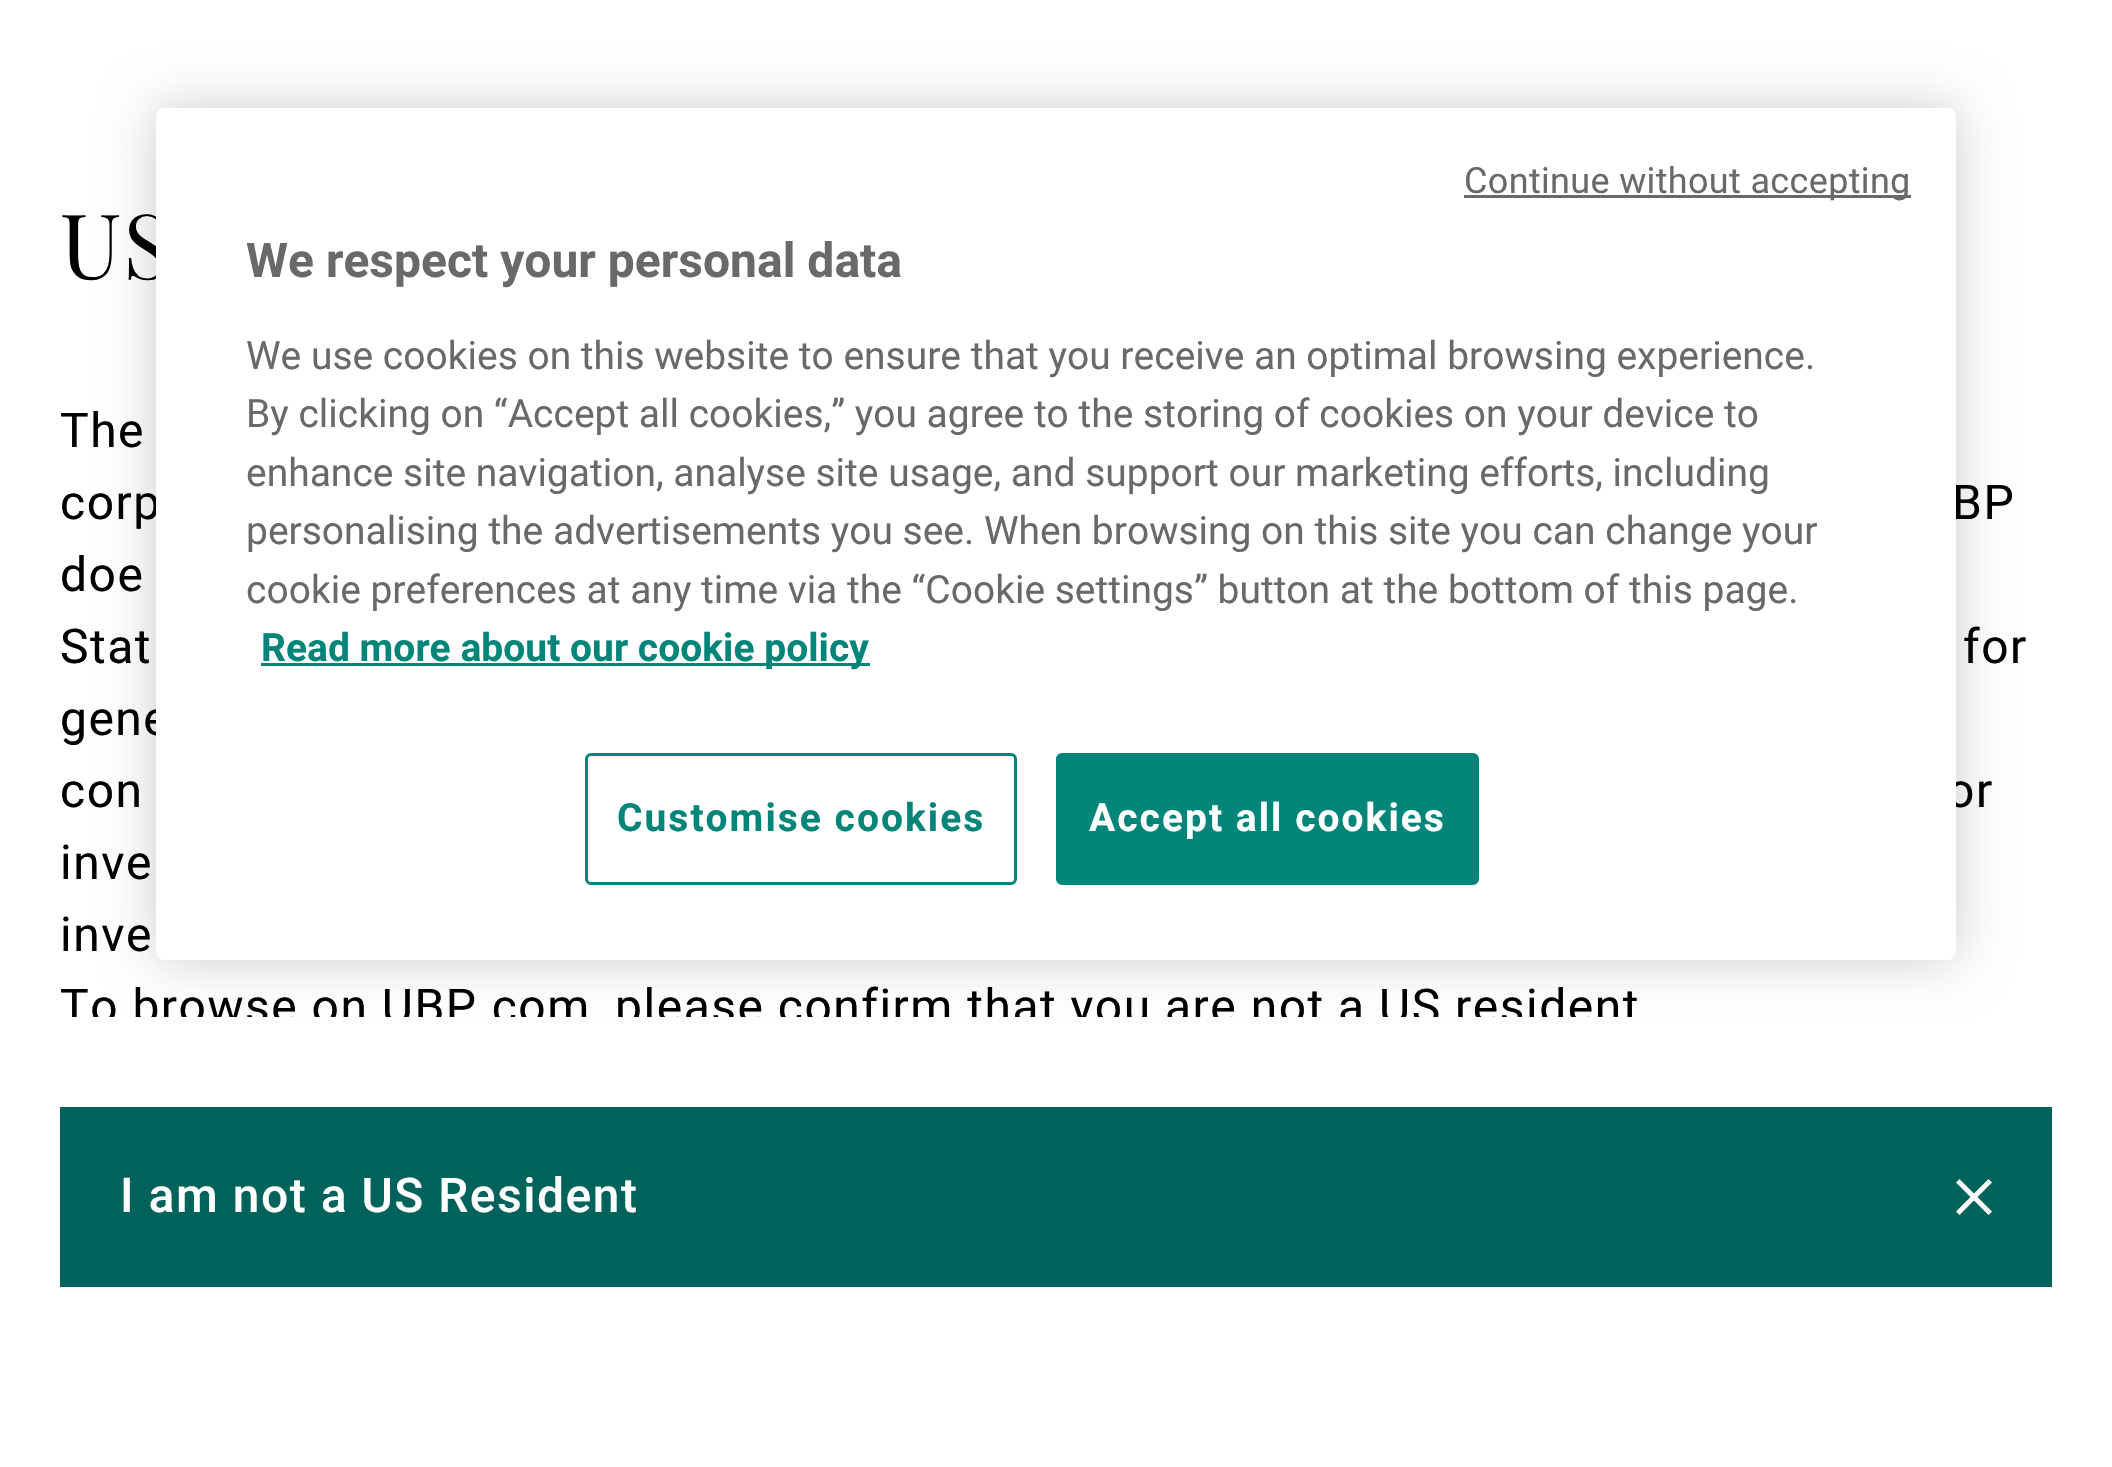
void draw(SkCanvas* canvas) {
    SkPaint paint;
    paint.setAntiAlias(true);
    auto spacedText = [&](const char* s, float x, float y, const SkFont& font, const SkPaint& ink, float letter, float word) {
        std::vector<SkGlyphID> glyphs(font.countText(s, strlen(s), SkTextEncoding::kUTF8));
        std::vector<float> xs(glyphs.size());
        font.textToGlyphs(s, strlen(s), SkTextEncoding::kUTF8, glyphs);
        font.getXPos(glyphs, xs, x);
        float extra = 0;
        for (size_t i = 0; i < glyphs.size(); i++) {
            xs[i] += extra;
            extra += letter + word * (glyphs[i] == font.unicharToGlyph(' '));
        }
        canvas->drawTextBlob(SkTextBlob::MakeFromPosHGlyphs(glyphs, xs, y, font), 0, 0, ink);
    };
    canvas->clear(0xFFFFFFFF);
    paint.setColor(0x33000000);
    paint.setMaskFilter(SkMaskFilter::MakeBlur(kNormal_SkBlurStyle, 27));
    canvas->drawRoundRect(SkRect::MakeXYWH(156, 108, 1800, 852), 8, 8, paint);
    paint.setMaskFilter(nullptr);
    SkFont font1(fontMgr->matchFamilyStyle("Playfair Display", SkFontStyle::Normal()), 90);
    font1.setSubpixel(true);
    paint.setColor(0xFF000000);
    spacedText("US", 60, 279, font1, paint, 1.5f, 0);
    SkFont font2(fontMgr->matchFamilyStyle("Roboto", SkFontStyle::Normal()), 48);
    font2.setSubpixel(true);
    spacedText("corp", 60, 519, font2, paint, 1.5f, 0);
    spacedText("BP", 1952, 519, font2, paint, 1.5f, 0);
    spacedText("gene", 60, 735, font2, paint, 1.5f, 0);
    spacedText("or", 1947, 807, font2, paint, 1.5f, 0);
    paint.setColor(0xFFFFFFFF);
    canvas->drawRoundRect(SkRect::MakeXYWH(156, 108, 1800, 852), 8, 8, paint);
    paint.setColor(0xFF696969);
    canvas->drawRect(SkRect::MakeXYWH(1464, 195, 447, 3), paint);
    SkFont font3(fontMgr->matchFamilyStyle("Roboto", SkFontStyle::Normal()), 36);
    font3.setSubpixel(true);
    spacedText("Continue without accepting", 1464, 193, font3, paint, 0.35f, 0);
    SkFont font4(fontMgr->matchFamilyStyle("Roboto", SkFontStyle::Bold()), 48);
    font4.setSubpixel(true);
    canvas->drawString("We respect your personal data", 246, 277, font4, paint);
    SkFont font5(fontMgr->matchFamilyStyle("Roboto", SkFontStyle::Normal()), 39);
    font5.setSubpixel(true);
    canvas->drawString("We use cookies on this website to ensure that you receive an optimal browsing experience.", 246, 369, font5, paint);
    canvas->drawString("By clicking on “Accept all cookies,” you agree to the storing of cookies on your device to", 246, 427, font5, paint);
    canvas->drawString("enhance site navigation, analyse site usage, and support our marketing efforts, including", 246, 486, font5, paint);
    canvas->drawString("personalising the advertisements you see. When browsing on this site you can change your", 246, 544, font5, paint);
    canvas->drawString("cookie preferences at any time via the “Cookie settings” button at the bottom of this page.", 246, 603, font5, paint);
    paint.setColor(0xFF008578);
    canvas->drawRect(SkRect::MakeXYWH(261, 663, 609, 3), paint);
    SkFont font6(fontMgr->matchFamilyStyle("Roboto", SkFontStyle::Bold()), 39);
    font6.setSubpixel(true);
    canvas->drawString("Read more about our cookie policy", 261, 661, font6, paint);
    paint.setStyle(SkPaint::kStroke_Style);
    paint.setStrokeWidth(3);
    canvas->drawRoundRect(SkRect::MakeXYWH(586.5f, 754.5f, 429, 129), 4.5f, 4.5f, paint);
    paint.setStyle(SkPaint::kFill_Style);
    spacedText("Customise cookies", 617, 831, font6, paint, 2, 0);
    canvas->drawRoundRect(SkRect::MakeXYWH(1057.5f, 754.5f, 420, 129), 4.5f, 4.5f, paint);
    paint.setStyle(SkPaint::kStroke_Style);
    canvas->drawRoundRect(SkRect::MakeXYWH(1057.5f, 754.5f, 420, 129), 4.5f, 4.5f, paint);
    paint.setStyle(SkPaint::kFill_Style);
    paint.setColor(0xFFFFFFFF);
    spacedText("Accept all cookies", 1089, 831, font6, paint, 2, 0);
    paint.setColor(0xFF000000);
    spacedText("The", 60, 447, font2, paint, 1.5f, 0);
    spacedText("doe", 60, 591, font2, paint, 1.5f, 0);
    spacedText("Stat", 60, 663, font2, paint, 1.5f, 0);
    spacedText("for", 1963, 663, font2, paint, 1.5f, 0);
    spacedText("con", 60, 807, font2, paint, 1.5f, 0);
    spacedText("inve", 60, 879, font2, paint, 1.5f, 0);
    spacedText("inve", 60, 951, font2, paint, 1.5f, 0);
    canvas->save();
    canvas->clipRect(SkRect::MakeXYWH(60, 396, 1992, 621));
    spacedText("To browse on UBP.com, please confirm that you are not a US resident", 60, 1023, font2, paint, 1.5f, 0);
    canvas->restore();
    paint.setColor(0xFF00635B);
    canvas->drawRect(SkRect::MakeXYWH(60, 1107, 1992, 180), paint);
    SkFont font7(fontMgr->matchFamilyStyle("Roboto", SkFontStyle(500, SkFontStyle::kNormal_Width, SkFontStyle::kUpright_Slant)), 48);
    font7.setSubpixel(true);
    paint.setColor(0xFFFFFFFF);
    spacedText("I am not a US Resident", 120, 1212, font7, paint, 1.5f, 0);
    canvas->drawPath(SkPathBuilder().moveTo(1959.5f, 1179).lineTo(1956, 1182.5f).lineTo(1970.5f, 1197).lineTo(1956, 1211.5f).lineTo(1959.5f, 1215).lineTo(1974, 1200.5f).lineTo(1988.5f, 1215).lineTo(1992, 1211.5f).lineTo(1977.5f, 1197).lineTo(1992, 1182.5f).lineTo(1988.5f, 1179).lineTo(1974, 1193.5f).close().detach(), paint);
}
